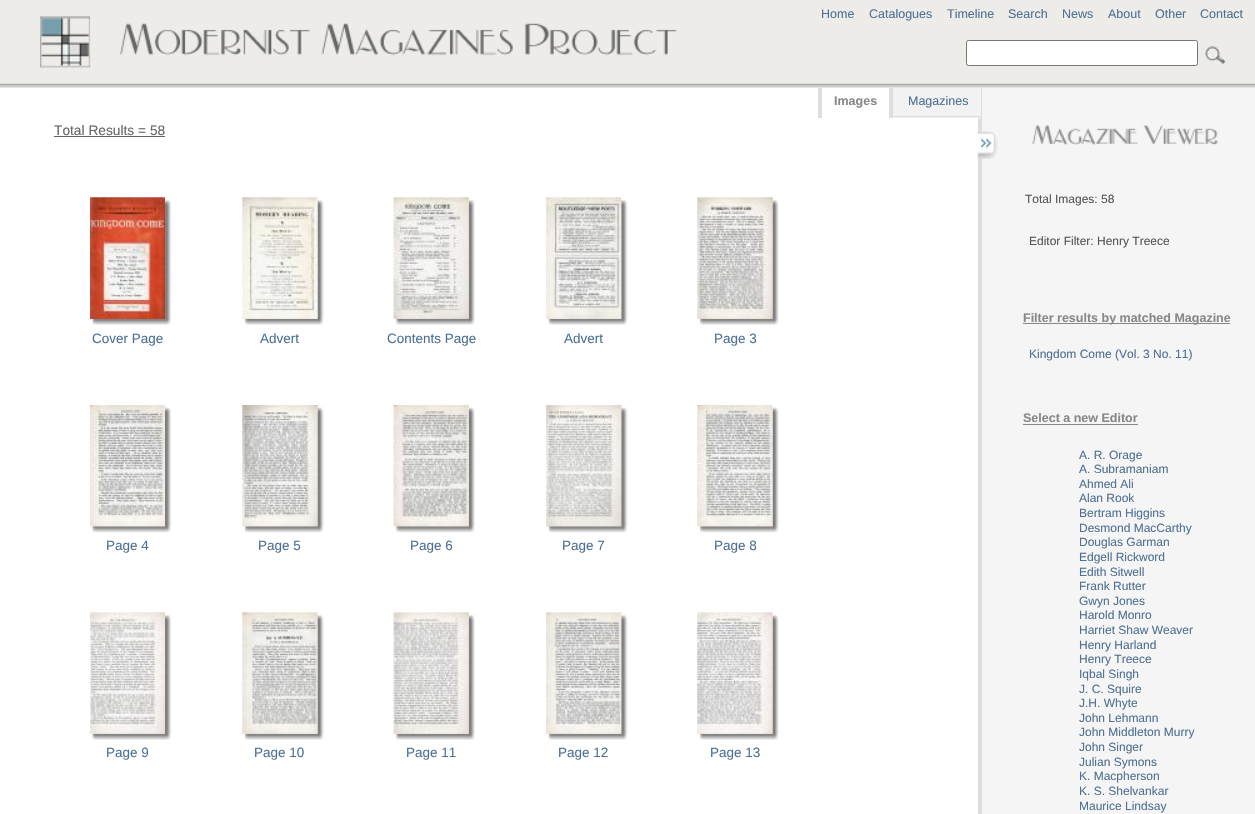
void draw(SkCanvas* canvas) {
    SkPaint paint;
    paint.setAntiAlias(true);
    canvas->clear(0xFFEDECE9);
    canvas->drawImageRect(SkImages::DeferredFromEncodedData(SkData::MakeFromFileName("img1.png")), SkRect::MakeXYWH(0, 83, 1255, 5), SkSamplingOptions());
    SkFont font1(fontMgr->matchFamilyStyle("Liberation Sans", SkFontStyle::Normal()), 12.5f);
    font1.setSubpixel(true);
    paint.setColor(0xFF4E7093);
    canvas->drawString("Home", 821, 18, font1, paint);
    canvas->drawString("Catalogues", 869, 18, font1, paint);
    canvas->drawString("Timeline", 947, 18, font1, paint);
    canvas->drawString("Search", 1008, 18, font1, paint);
    canvas->drawString("News", 1062, 18, font1, paint);
    canvas->drawString("About", 1108, 18, font1, paint);
    canvas->drawString("Other", 1155, 18, font1, paint);
    canvas->drawString("Contact", 1200, 18, font1, paint);
    canvas->drawImageRect(SkImages::DeferredFromEncodedData(SkData::MakeFromFileName("img2.png")), SkRect::MakeXYWH(40, 16, 637, 52), SkSamplingOptions());
    paint.setColor(0xFFFFFFFF);
    canvas->drawRoundRect(SkRect::MakeXYWH(966.5f, 40.5f, 231, 25), 2, 2, paint);
    paint.setStyle(SkPaint::kStroke_Style);
    paint.setStrokeWidth(1);
    paint.setColor(0xFF767676);
    canvas->drawRoundRect(SkRect::MakeXYWH(966.5f, 40.5f, 231, 25), 2, 2, paint);
    canvas->drawImageRect(SkImages::DeferredFromEncodedData(SkData::MakeFromFileName("img3.png")), SkRect::MakeXYWH(1205, 46, 21, 18), SkSamplingOptions());
    paint.setStyle(SkPaint::kFill_Style);
    paint.setColor(0xFFF5F5F5);
    canvas->drawRect(SkRect::MakeXYWH(982, 88, 273, 726), paint);
    paint.setColor(0xFFFFFFFF);
    canvas->drawRect(SkRect::MakeXYWH(0, 88, 978, 726), paint);
    paint.setColor(0xFFDEDEDE);
    canvas->drawRect(SkRect::MakeXYWH(978, 88, 4, 726), paint);
    paint.setColor(0xFFF2F2F2);
    canvas->drawRect(SkRect::MakeXYWH(893, 88, 88, 30), paint);
    paint.setColor(0xFFDEDEDE);
    canvas->drawRect(SkRect::MakeXYWH(893, 116, 88, 1), paint);
    canvas->drawRect(SkRect::MakeXYWH(889, 88, 4, 30), paint);
    canvas->drawRect(SkRect::MakeXYWH(818, 88, 4, 30), paint);
    SkFont font2(fontMgr->matchFamilyStyle("Liberation Sans", SkFontStyle::Bold()), 12.5f);
    font2.setSubpixel(true);
    paint.setColor(0xFF888888);
    canvas->drawString("Images", 834, 105, font2, paint);
    paint.setColor(0xFF4E7093);
    canvas->drawString("Magazines", 908, 105, font1, paint);
    SkFont font3(fontMgr->matchFamilyStyle("Liberation Sans", SkFontStyle::Normal()), 13.75f);
    font3.setSubpixel(true);
    paint.setColor(0xFF666666);
    canvas->drawString("Total Results = 58", 54, 135, font3, paint);
    canvas->drawRect(SkRect::MakeXYWH(54, 136, 111, 1), paint);
    canvas->drawImageRect(SkImages::DeferredFromEncodedData(SkData::MakeFromFileName("img4.png")), SkRect::MakeXYWH(90, 197, 82, 128), SkSamplingOptions());
    canvas->drawImageRect(SkImages::DeferredFromEncodedData(SkData::MakeFromFileName("img5.png")), SkRect::MakeXYWH(90, 197, 75, 122), SkSamplingOptions());
    SkFont font4(fontMgr->matchFamilyStyle("Liberation Sans", SkFontStyle::Normal()), 13.5f);
    font4.setSubpixel(true);
    paint.setColor(0xFF4E7093);
    canvas->drawString("Cover Page", 92, 343, font4, paint);
    canvas->drawImageRect(SkImages::DeferredFromEncodedData(SkData::MakeFromFileName("img6.png")), SkRect::MakeXYWH(242, 197, 82, 128), SkSamplingOptions());
    canvas->drawImageRect(SkImages::DeferredFromEncodedData(SkData::MakeFromFileName("img7.png")), SkRect::MakeXYWH(242, 197, 76, 122), SkSamplingOptions());
    canvas->drawString("Advert", 260, 343, font4, paint);
    canvas->drawImageRect(SkImages::DeferredFromEncodedData(SkData::MakeFromFileName("img8.png")), SkRect::MakeXYWH(393, 197, 82, 128), SkSamplingOptions());
    canvas->drawImageRect(SkImages::DeferredFromEncodedData(SkData::MakeFromFileName("img9.png")), SkRect::MakeXYWH(393, 197, 76, 122), SkSamplingOptions());
    canvas->drawString("Contents Page", 387, 343, font4, paint);
    canvas->drawImageRect(SkImages::DeferredFromEncodedData(SkData::MakeFromFileName("img10.png")), SkRect::MakeXYWH(546, 197, 82, 128), SkSamplingOptions());
    canvas->drawImageRect(SkImages::DeferredFromEncodedData(SkData::MakeFromFileName("img11.png")), SkRect::MakeXYWH(546, 197, 76, 122), SkSamplingOptions());
    canvas->drawString("Advert", 564, 343, font4, paint);
    canvas->drawImageRect(SkImages::DeferredFromEncodedData(SkData::MakeFromFileName("img12.png")), SkRect::MakeXYWH(697, 197, 82, 128), SkSamplingOptions());
    canvas->drawImageRect(SkImages::DeferredFromEncodedData(SkData::MakeFromFileName("img13.png")), SkRect::MakeXYWH(697, 197, 76, 122), SkSamplingOptions());
    canvas->drawString("Page 3", 714, 343, font4, paint);
    canvas->drawImageRect(SkImages::DeferredFromEncodedData(SkData::MakeFromFileName("img14.png")), SkRect::MakeXYWH(90, 405, 82, 128), SkSamplingOptions());
    canvas->drawImageRect(SkImages::DeferredFromEncodedData(SkData::MakeFromFileName("img15.png")), SkRect::MakeXYWH(90, 526, 75, 1), SkSamplingOptions());
    canvas->drawString("Page 4", 106, 550, font4, paint);
    canvas->drawImageRect(SkImages::DeferredFromEncodedData(SkData::MakeFromFileName("img16.png")), SkRect::MakeXYWH(242, 405, 82, 128), SkSamplingOptions());
    canvas->drawImageRect(SkImages::DeferredFromEncodedData(SkData::MakeFromFileName("img17.png")), SkRect::MakeXYWH(242, 405, 76, 122), SkSamplingOptions());
    canvas->drawString("Page 5", 258, 550, font4, paint);
    canvas->drawImageRect(SkImages::DeferredFromEncodedData(SkData::MakeFromFileName("img18.png")), SkRect::MakeXYWH(393, 405, 82, 128), SkSamplingOptions());
    canvas->drawImageRect(SkImages::DeferredFromEncodedData(SkData::MakeFromFileName("img19.png")), SkRect::MakeXYWH(393, 405, 76, 122), SkSamplingOptions());
    canvas->drawString("Page 6", 410, 550, font4, paint);
    canvas->drawImageRect(SkImages::DeferredFromEncodedData(SkData::MakeFromFileName("img20.png")), SkRect::MakeXYWH(546, 405, 82, 128), SkSamplingOptions());
    canvas->drawImageRect(SkImages::DeferredFromEncodedData(SkData::MakeFromFileName("img21.png")), SkRect::MakeXYWH(546, 405, 76, 122), SkSamplingOptions());
    canvas->drawString("Page 7", 562, 550, font4, paint);
    canvas->drawImageRect(SkImages::DeferredFromEncodedData(SkData::MakeFromFileName("img22.png")), SkRect::MakeXYWH(697, 405, 82, 128), SkSamplingOptions());
    canvas->drawImageRect(SkImages::DeferredFromEncodedData(SkData::MakeFromFileName("img23.png")), SkRect::MakeXYWH(697, 405, 76, 122), SkSamplingOptions());
    canvas->drawString("Page 8", 714, 550, font4, paint);
    canvas->drawImageRect(SkImages::DeferredFromEncodedData(SkData::MakeFromFileName("img24.png")), SkRect::MakeXYWH(90, 612, 82, 128), SkSamplingOptions());
    canvas->drawImageRect(SkImages::DeferredFromEncodedData(SkData::MakeFromFileName("img25.png")), SkRect::MakeXYWH(90, 612, 75, 122), SkSamplingOptions());
    canvas->drawString("Page 9", 106, 757, font4, paint);
    canvas->drawImageRect(SkImages::DeferredFromEncodedData(SkData::MakeFromFileName("img26.png")), SkRect::MakeXYWH(242, 612, 82, 128), SkSamplingOptions());
    canvas->drawImageRect(SkImages::DeferredFromEncodedData(SkData::MakeFromFileName("img27.png")), SkRect::MakeXYWH(242, 612, 76, 122), SkSamplingOptions());
    canvas->drawString("Page 10", 254, 757, font4, paint);
    canvas->drawImageRect(SkImages::DeferredFromEncodedData(SkData::MakeFromFileName("img28.png")), SkRect::MakeXYWH(393, 612, 82, 128), SkSamplingOptions());
    canvas->drawImageRect(SkImages::DeferredFromEncodedData(SkData::MakeFromFileName("img29.png")), SkRect::MakeXYWH(393, 612, 76, 122), SkSamplingOptions());
    canvas->drawString("Page 11", 406, 757, font4, paint);
    canvas->drawImageRect(SkImages::DeferredFromEncodedData(SkData::MakeFromFileName("img30.png")), SkRect::MakeXYWH(546, 612, 82, 128), SkSamplingOptions());
    canvas->drawImageRect(SkImages::DeferredFromEncodedData(SkData::MakeFromFileName("img31.png")), SkRect::MakeXYWH(546, 612, 76, 122), SkSamplingOptions());
    canvas->drawString("Page 12", 558, 757, font4, paint);
    canvas->drawImageRect(SkImages::DeferredFromEncodedData(SkData::MakeFromFileName("img32.png")), SkRect::MakeXYWH(697, 612, 82, 128), SkSamplingOptions());
    canvas->drawImageRect(SkImages::DeferredFromEncodedData(SkData::MakeFromFileName("img33.png")), SkRect::MakeXYWH(697, 612, 76, 122), SkSamplingOptions());
    canvas->drawString("Page 13", 710, 757, font4, paint);
    canvas->drawImageRect(SkImages::DeferredFromEncodedData(SkData::MakeFromFileName("img34.png")), SkRect::MakeXYWH(977, 131, 21, 28), SkSamplingOptions());
    canvas->drawImageRect(SkImages::DeferredFromEncodedData(SkData::MakeFromFileName("img35.png")), SkRect::MakeXYWH(1032, 125, 186, 20), SkSamplingOptions());
    SkFont font5(fontMgr->matchFamilyStyle("Liberation Sans", SkFontStyle::Normal()), 12);
    font5.setSubpixel(true);
    paint.setColor(0xFF555555);
    canvas->drawString("Total Images: 58", 1025, 203, font5, paint);
    canvas->drawString("Editor Filter: Henry Treece", 1029, 245, font5, paint);
    paint.setColor(0xFF888888);
    canvas->drawRect(SkRect::MakeXYWH(1023, 323, 207, 1), paint);
    canvas->drawString("Filter results by matched Magazine", 1023, 322, font2, paint);
    paint.setColor(0xFF4E7093);
    canvas->drawString("Kingdom Come (Vol. 3 No. 11)", 1029, 358, font5, paint);
    paint.setColor(0xFF888888);
    canvas->drawString("Select a new Editor", 1023, 422, font2, paint);
    canvas->drawRect(SkRect::MakeXYWH(1023, 424, 115, 1), paint);
    paint.setColor(0xFF4E7093);
    canvas->drawString("A. R. Orage", 1079, 459, font5, paint);
    canvas->drawString("A. Subramaniam", 1079, 473, font5, paint);
    canvas->drawString("Ahmed Ali", 1079, 488, font5, paint);
    canvas->drawString("Alan Rook", 1079, 502, font5, paint);
    canvas->drawString("Bertram Higgins", 1079, 517, font5, paint);
    canvas->drawString("Desmond MacCarthy", 1079, 532, font5, paint);
    canvas->drawString("Douglas Garman", 1079, 546, font5, paint);
    canvas->drawString("Edgell Rickword", 1079, 561, font5, paint);
    canvas->drawString("Edith Sitwell", 1079, 576, font5, paint);
    canvas->drawString("Frank Rutter", 1079, 590, font5, paint);
    canvas->drawString("Gwyn Jones", 1079, 605, font5, paint);
    canvas->drawString("Harold Monro", 1079, 619, font5, paint);
    canvas->drawString("Harriet Shaw Weaver", 1079, 634, font5, paint);
    canvas->drawString("Henry Harland", 1079, 649, font5, paint);
    canvas->drawString("Henry Treece", 1079, 663, font5, paint);
    canvas->drawString("Iqbal Singh", 1079, 678, font5, paint);
    canvas->drawString("J. C. Squire", 1079, 693, font5, paint);
    canvas->drawString("J.H. Whyte", 1079, 707, font5, paint);
    canvas->drawString("John Lehmann", 1079, 722, font5, paint);
    canvas->drawString("John Middleton Murry", 1079, 736, font5, paint);
    canvas->drawString("John Singer", 1079, 751, font5, paint);
    canvas->drawString("Julian Symons", 1079, 766, font5, paint);
    canvas->drawString("K. Macpherson", 1079, 780, font5, paint);
    canvas->drawString("K. S. Shelvankar", 1079, 795, font5, paint);
    canvas->drawString("Maurice Lindsay", 1079, 810, font5, paint);
}
